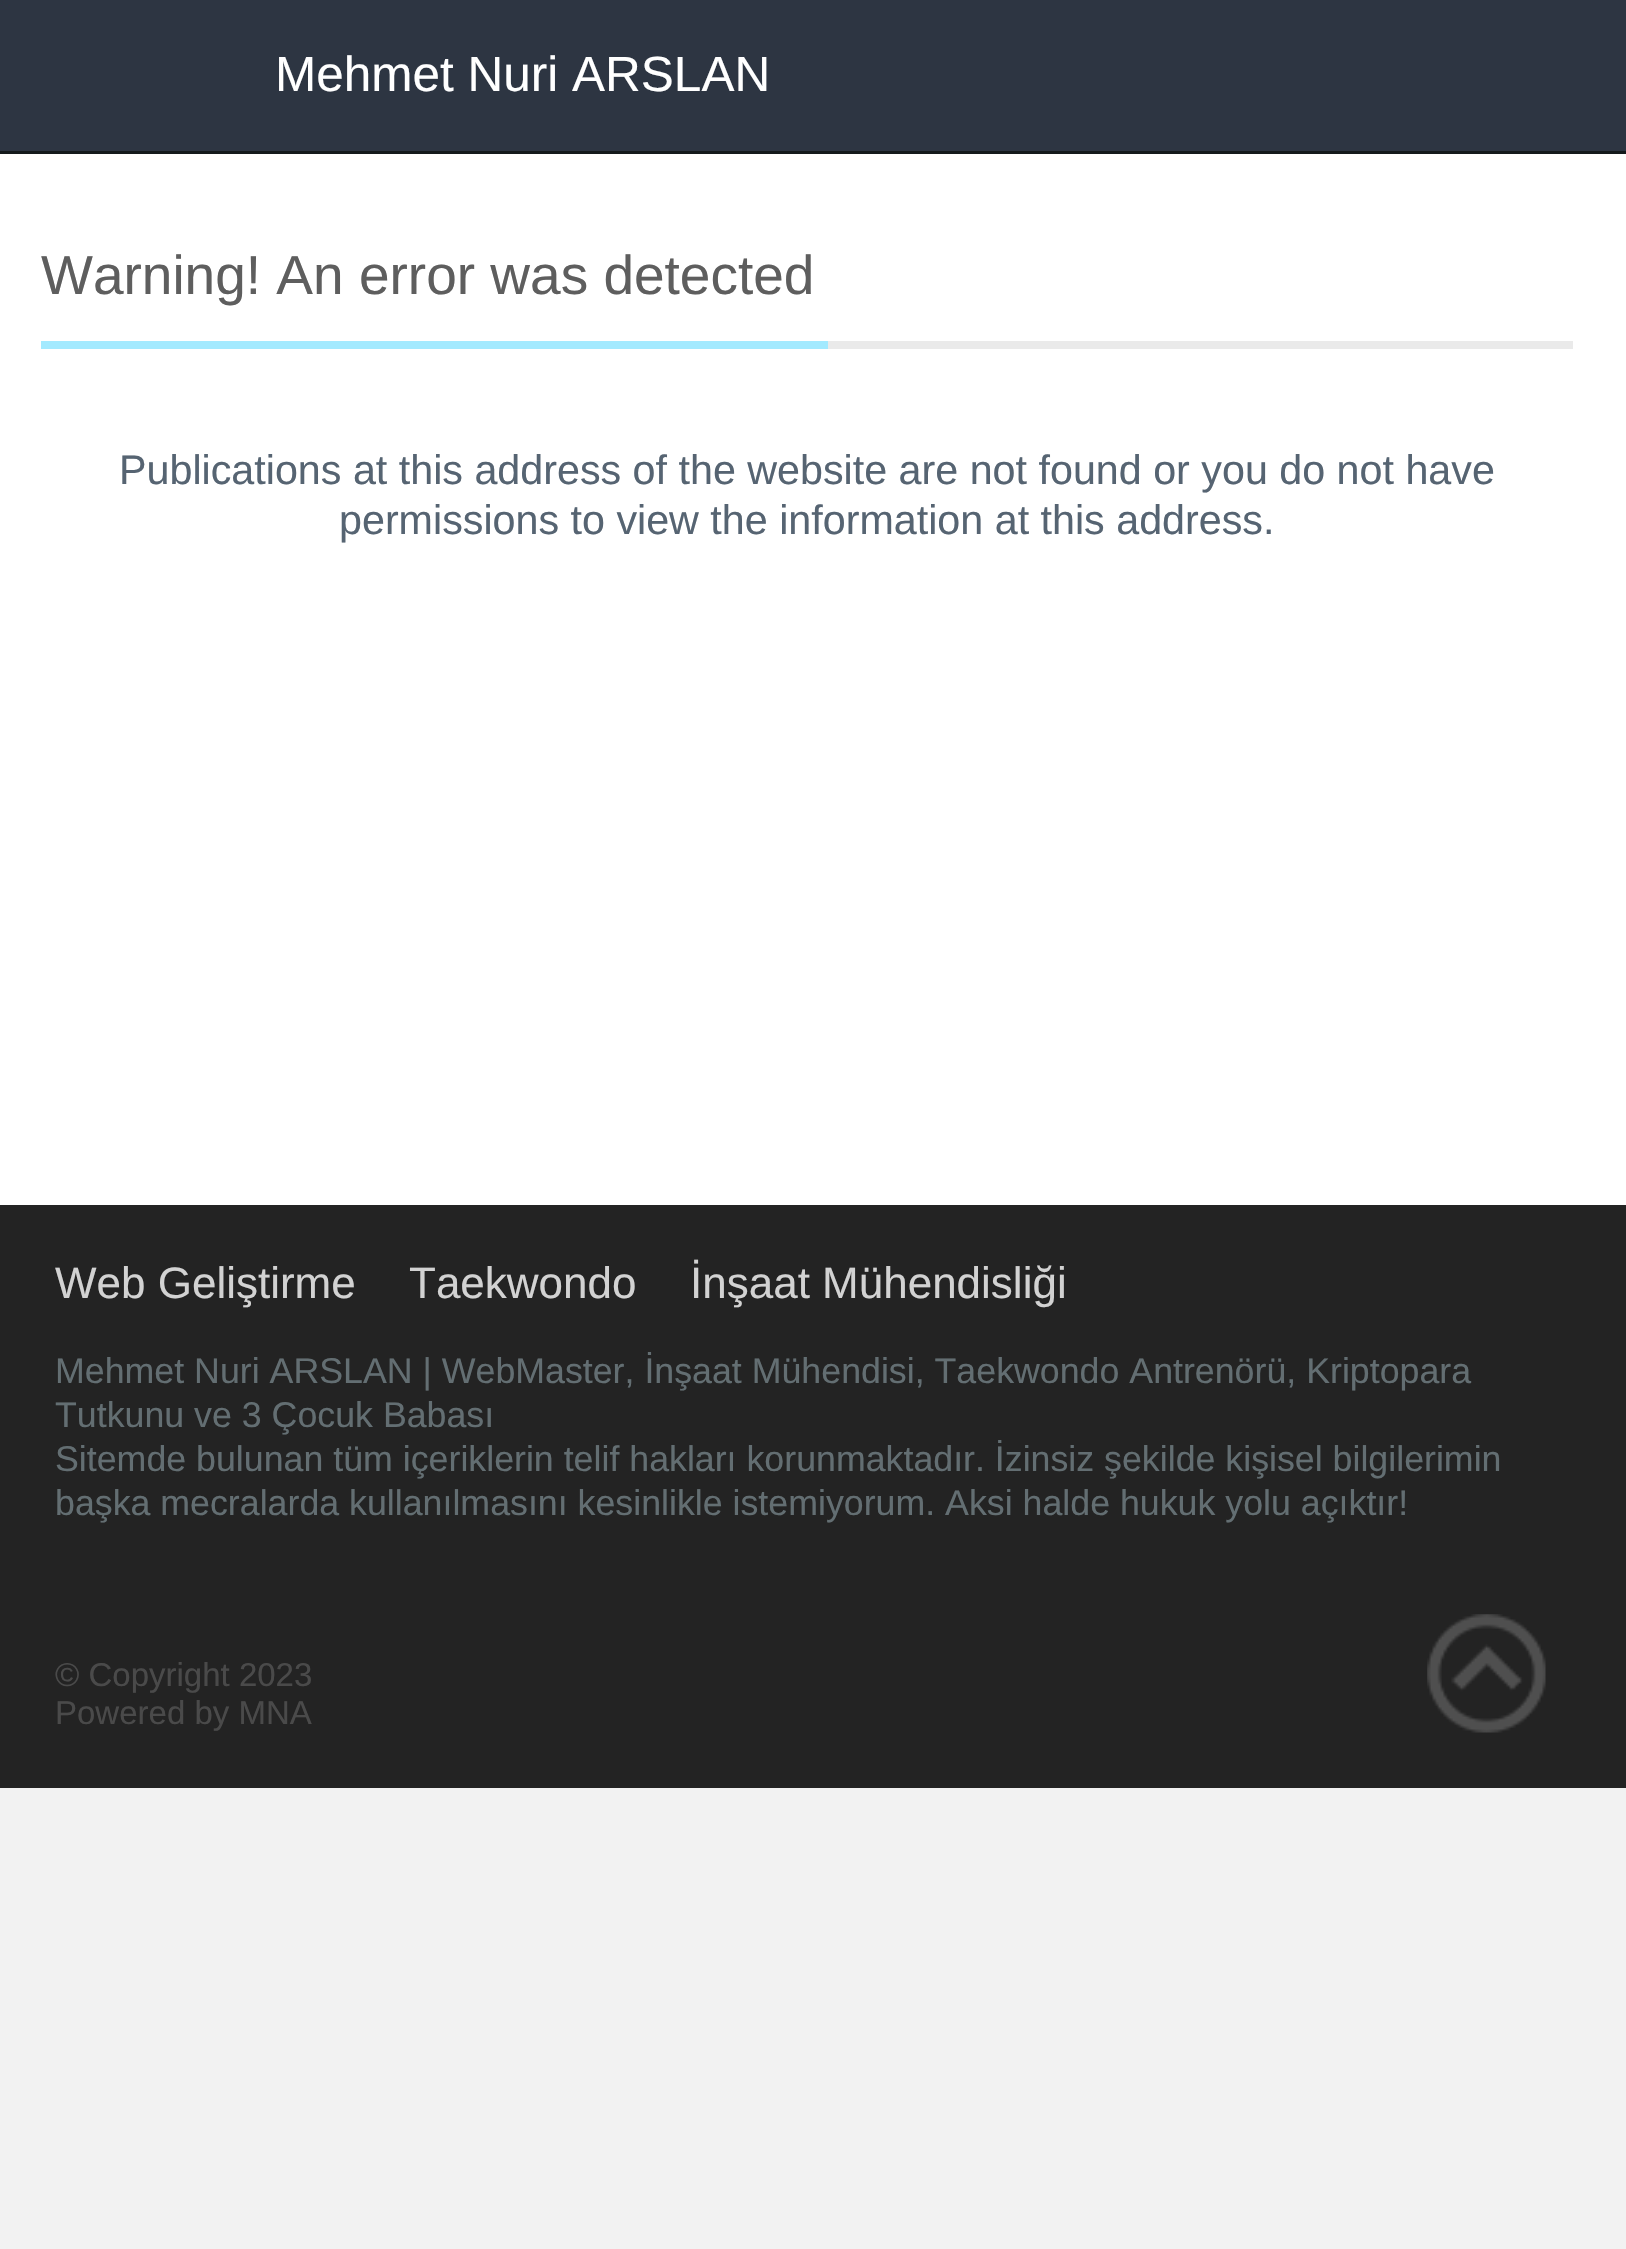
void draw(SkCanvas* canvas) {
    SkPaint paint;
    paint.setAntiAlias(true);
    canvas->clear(0xFFF2F2F2);
    paint.setColor(0xFF2D3542);
    canvas->drawRect(SkRect::MakeXYWH(0, 0, 1626, 151), paint);
    paint.setColor(0xFF141A1C);
    canvas->drawRect(SkRect::MakeXYWH(0, 151, 1626, 3), paint);
    SkFont font1(fontMgr->matchFamilyStyle("Liberation Sans", SkFontStyle::Normal()), 49.5f);
    font1.setSubpixel(true);
    paint.setColor(0xFFFFFFFF);
    canvas->drawString("Mehmet Nuri ARSLAN", 275, 91, font1, paint);
    canvas->drawRect(SkRect::MakeXYWH(0, 154, 1626, 1051), paint);
    paint.setColor(0xFFEAEAEA);
    canvas->drawRect(SkRect::MakeXYWH(828, 341, 745, 8), paint);
    paint.setColor(0xFFA3EAFF);
    canvas->drawRect(SkRect::MakeXYWH(41, 341, 787, 8), paint);
    SkFont font2(fontMgr->matchFamilyStyle("Liberation Sans", SkFontStyle::Normal()), 55);
    font2.setSubpixel(true);
    paint.setColor(0xFF5E5E5E);
    canvas->drawString("Warning! An error was detected", 41, 294, font2, paint);
    SkFont font3(fontMgr->matchFamilyStyle("Liberation Sans", SkFontStyle::Normal()), 41.25f);
    font3.setSubpixel(true);
    paint.setColor(0xFF566472);
    canvas->drawString("Publications at this address of the website are not found or you do not have", 119, 484, font3, paint);
    canvas->drawString("permissions to view the information at this address.", 339, 534, font3, paint);
    paint.setColor(0xFF232323);
    canvas->drawRect(SkRect::MakeXYWH(0, 1205, 1626, 583), paint);
    SkFont font4(fontMgr->matchFamilyStyle("Liberation Sans", SkFontStyle::Normal()), 44);
    font4.setSubpixel(true);
    paint.setColor(0xFFD2D2D2);
    canvas->drawString("Web Geliştirme", 55, 1298, font4, paint);
    canvas->drawString("Taekwondo", 409, 1298, font4, paint);
    canvas->drawString("İnşaat Mühendisliği", 690, 1298, font4, paint);
    SkFont font5(fontMgr->matchFamilyStyle("Liberation Sans", SkFontStyle::Normal()), 35.75f);
    font5.setSubpixel(true);
    paint.setColor(0xFF636E72);
    canvas->drawString("Mehmet Nuri ARSLAN | WebMaster, İnşaat Mühendisi, Taekwondo Antrenörü, Kriptopara", 55, 1383, font5, paint);
    canvas->drawString("Tutkunu ve 3 Çocuk Babası", 55, 1427, font5, paint);
    canvas->drawString("Sitemde bulunan tüm içeriklerin telif hakları korunmaktadır. İzinsiz şekilde kişisel bilgilerimin", 55, 1471, font5, paint);
    canvas->drawString("başka mecralarda kullanılmasını kesinlikle istemiyorum. Aksi halde hukuk yolu açıktır!", 55, 1515, font5, paint);
    SkFont font6(fontMgr->matchFamilyStyle("Liberation Sans", SkFontStyle::Normal()), 33);
    font6.setSubpixel(true);
    paint.setColor(0xFF4A4A4A);
    canvas->drawString("© Copyright 2023", 55, 1686, font6, paint);
    canvas->drawString("Powered by MNA", 55, 1724, font6, paint);
    canvas->drawImageRect(SkImages::DeferredFromEncodedData(SkData::MakeFromFileName("img1.png")), SkRect::MakeXYWH(1427, 1614, 119, 119), SkSamplingOptions());
}
